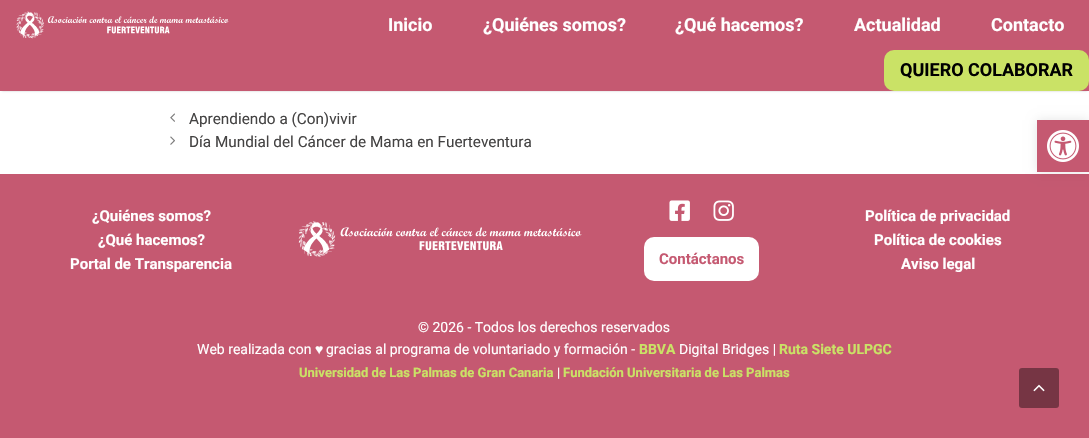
void draw(SkCanvas* canvas) {
    SkPaint paint;
    paint.setAntiAlias(true);
    canvas->clear(0xFFFFFFFF);
    paint.setColor(0x33000000);
    paint.setMaskFilter(SkMaskFilter::MakeBlur(kNormal_SkBlurStyle, 1));
    canvas->drawRect(SkRect::MakeXYWH(2, 4, 1085, 87), paint);
    paint.setMaskFilter(nullptr);
    paint.setColor(0xFFC55971);
    canvas->drawRect(SkRect::MakeXYWH(0, 0, 1089, 91), paint);
    canvas->drawImageRect(SkImages::DeferredFromEncodedData(SkData::MakeFromFileName("img1.png")), SkRect::MakeXYWH(16, 11, 213, 28), SkSamplingOptions());
    SkFont font1(fontMgr->matchFamilyStyle("Roboto", SkFontStyle::Bold()), 18);
    font1.setSubpixel(true);
    paint.setColor(0xFFFFFFFF);
    canvas->drawString("Inicio", 388, 31, font1, paint);
    canvas->drawString("¿Quiénes somos?", 483, 31, font1, paint);
    canvas->drawString("¿Qué hacemos?", 675, 31, font1, paint);
    canvas->drawString("Actualidad", 854, 31, font1, paint);
    canvas->drawString("Contacto", 991, 31, font1, paint);
    paint.setColor(0xFFCAE266);
    canvas->drawRoundRect(SkRect::MakeXYWH(884, 50, 205, 41), 10, 10, paint);
    paint.setColor(0xFF000000);
    canvas->drawString("QUIERO COLABORAR", 900, 76, font1, paint);
    canvas->drawImageRect(SkImages::DeferredFromEncodedData(SkData::MakeFromFileName("img2.png")), SkRect::MakeXYWH(170, 113, 5, 9), SkSamplingOptions());
    SkFont font2(fontMgr->matchFamilyStyle("Roboto", SkFontStyle::Normal()), 15.3f);
    font2.setSubpixel(true);
    paint.setColor(0xFF444343);
    canvas->drawString("Aprendiendo a (Con)vivir", 189, 124, font2, paint);
    canvas->drawImageRect(SkImages::DeferredFromEncodedData(SkData::MakeFromFileName("img3.png")), SkRect::MakeXYWH(170, 136, 5, 9), SkSamplingOptions());
    canvas->drawString("Día Mundial del Cáncer de Mama en Fuerteventura", 189, 147, font2, paint);
    paint.setColor(0xFFC55971);
    canvas->drawRect(SkRect::MakeXYWH(0, 174, 1089, 264), paint);
    paint.setColor(0x1A000000);
    paint.setMaskFilter(SkMaskFilter::MakeBlur(kNormal_SkBlurStyle, 5));
    canvas->drawRect(SkRect::MakeXYWH(1037, 120, 52, 52), paint);
    paint.setMaskFilter(nullptr);
    paint.setColor(0xFFC55971);
    canvas->drawRect(SkRect::MakeXYWH(1037, 120, 52, 52), paint);
    canvas->drawImageRect(SkImages::DeferredFromEncodedData(SkData::MakeFromFileName("img4.png")), SkRect::MakeXYWH(1047, 130, 32, 32), SkSamplingOptions());
    SkFont font3(fontMgr->matchFamilyStyle("Roboto", SkFontStyle::Bold()), 15);
    font3.setSubpixel(true);
    paint.setColor(0xFFFFFFFF);
    canvas->drawString("¿Quiénes somos?", 92, 221, font3, paint);
    canvas->drawString("¿Qué hacemos?", 98, 245, font3, paint);
    canvas->drawString("Portal de Transparencia", 70, 269, font3, paint);
    canvas->drawImageRect(SkImages::DeferredFromEncodedData(SkData::MakeFromFileName("img5.png")), SkRect::MakeXYWH(298, 221, 284, 36), SkSamplingOptions());
    canvas->drawString("Política de privacidad", 865, 221, font3, paint);
    canvas->drawString("Política de cookies", 874, 245, font3, paint);
    canvas->drawString("Aviso legal", 901, 269, font3, paint);
    canvas->drawImageRect(SkImages::DeferredFromEncodedData(SkData::MakeFromFileName("img6.png")), SkRect::MakeXYWH(669, 200, 21, 21), SkSamplingOptions());
    canvas->drawImageRect(SkImages::DeferredFromEncodedData(SkData::MakeFromFileName("img7.png")), SkRect::MakeXYWH(713, 200, 21, 21), SkSamplingOptions());
    canvas->drawRoundRect(SkRect::MakeXYWH(644, 237, 115, 44), 10, 10, paint);
    paint.setColor(0xFFC55971);
    canvas->drawString("Contáctanos", 659, 264, font3, paint);
    SkFont font4(fontMgr->matchFamilyStyle("Roboto", SkFontStyle::Normal()), 14);
    font4.setSubpixel(true);
    paint.setColor(0xFFFFFFFF);
    canvas->drawString("© 2026 - Todos los derechos reservados", 418, 332, font4, paint);
    canvas->drawString("Web realizada con", 197, 354, font4, paint);
    SkFont font5(fontMgr->matchFamilyStyle("Liberation Sans", SkFontStyle::Normal()), 14);
    font5.setSubpixel(true);
    canvas->drawString("♥", 315, 354, font5, paint);
    canvas->drawString("gracias al programa de voluntariado y formación -", 326, 354, font4, paint);
    SkFont font6(fontMgr->matchFamilyStyle("Roboto", SkFontStyle::Bold()), 14);
    font6.setSubpixel(true);
    paint.setColor(0xFFCAE266);
    canvas->drawString("BBVA", 639, 354, font6, paint);
    paint.setColor(0xFFFFFFFF);
    canvas->drawString("Digital Bridges |", 679, 354, font4, paint);
    paint.setColor(0xFFCAE266);
    canvas->drawString("Ruta Siete ULPGC", 779, 354, font6, paint);
    SkFont font7(fontMgr->matchFamilyStyle("Roboto", SkFontStyle::Bold()), 13);
    font7.setSubpixel(true);
    canvas->drawString("Universidad de Las Palmas de Gran Canaria", 299, 377, font7, paint);
    SkFont font8(fontMgr->matchFamilyStyle("Roboto", SkFontStyle::Normal()), 13);
    font8.setSubpixel(true);
    paint.setColor(0xFFFFFFFF);
    canvas->drawString("|", 557, 377, font8, paint);
    paint.setColor(0xFFCAE266);
    canvas->drawString("Fundación Universitaria de Las Palmas", 563, 377, font7, paint);
    paint.setColor(0xFF763544);
    canvas->drawRoundRect(SkRect::MakeXYWH(1019, 368, 40, 40), 3, 3, paint);
    canvas->drawImageRect(SkImages::DeferredFromEncodedData(SkData::MakeFromFileName("img8.png")), SkRect::MakeXYWH(1033, 384, 12, 8), SkSamplingOptions());
}
